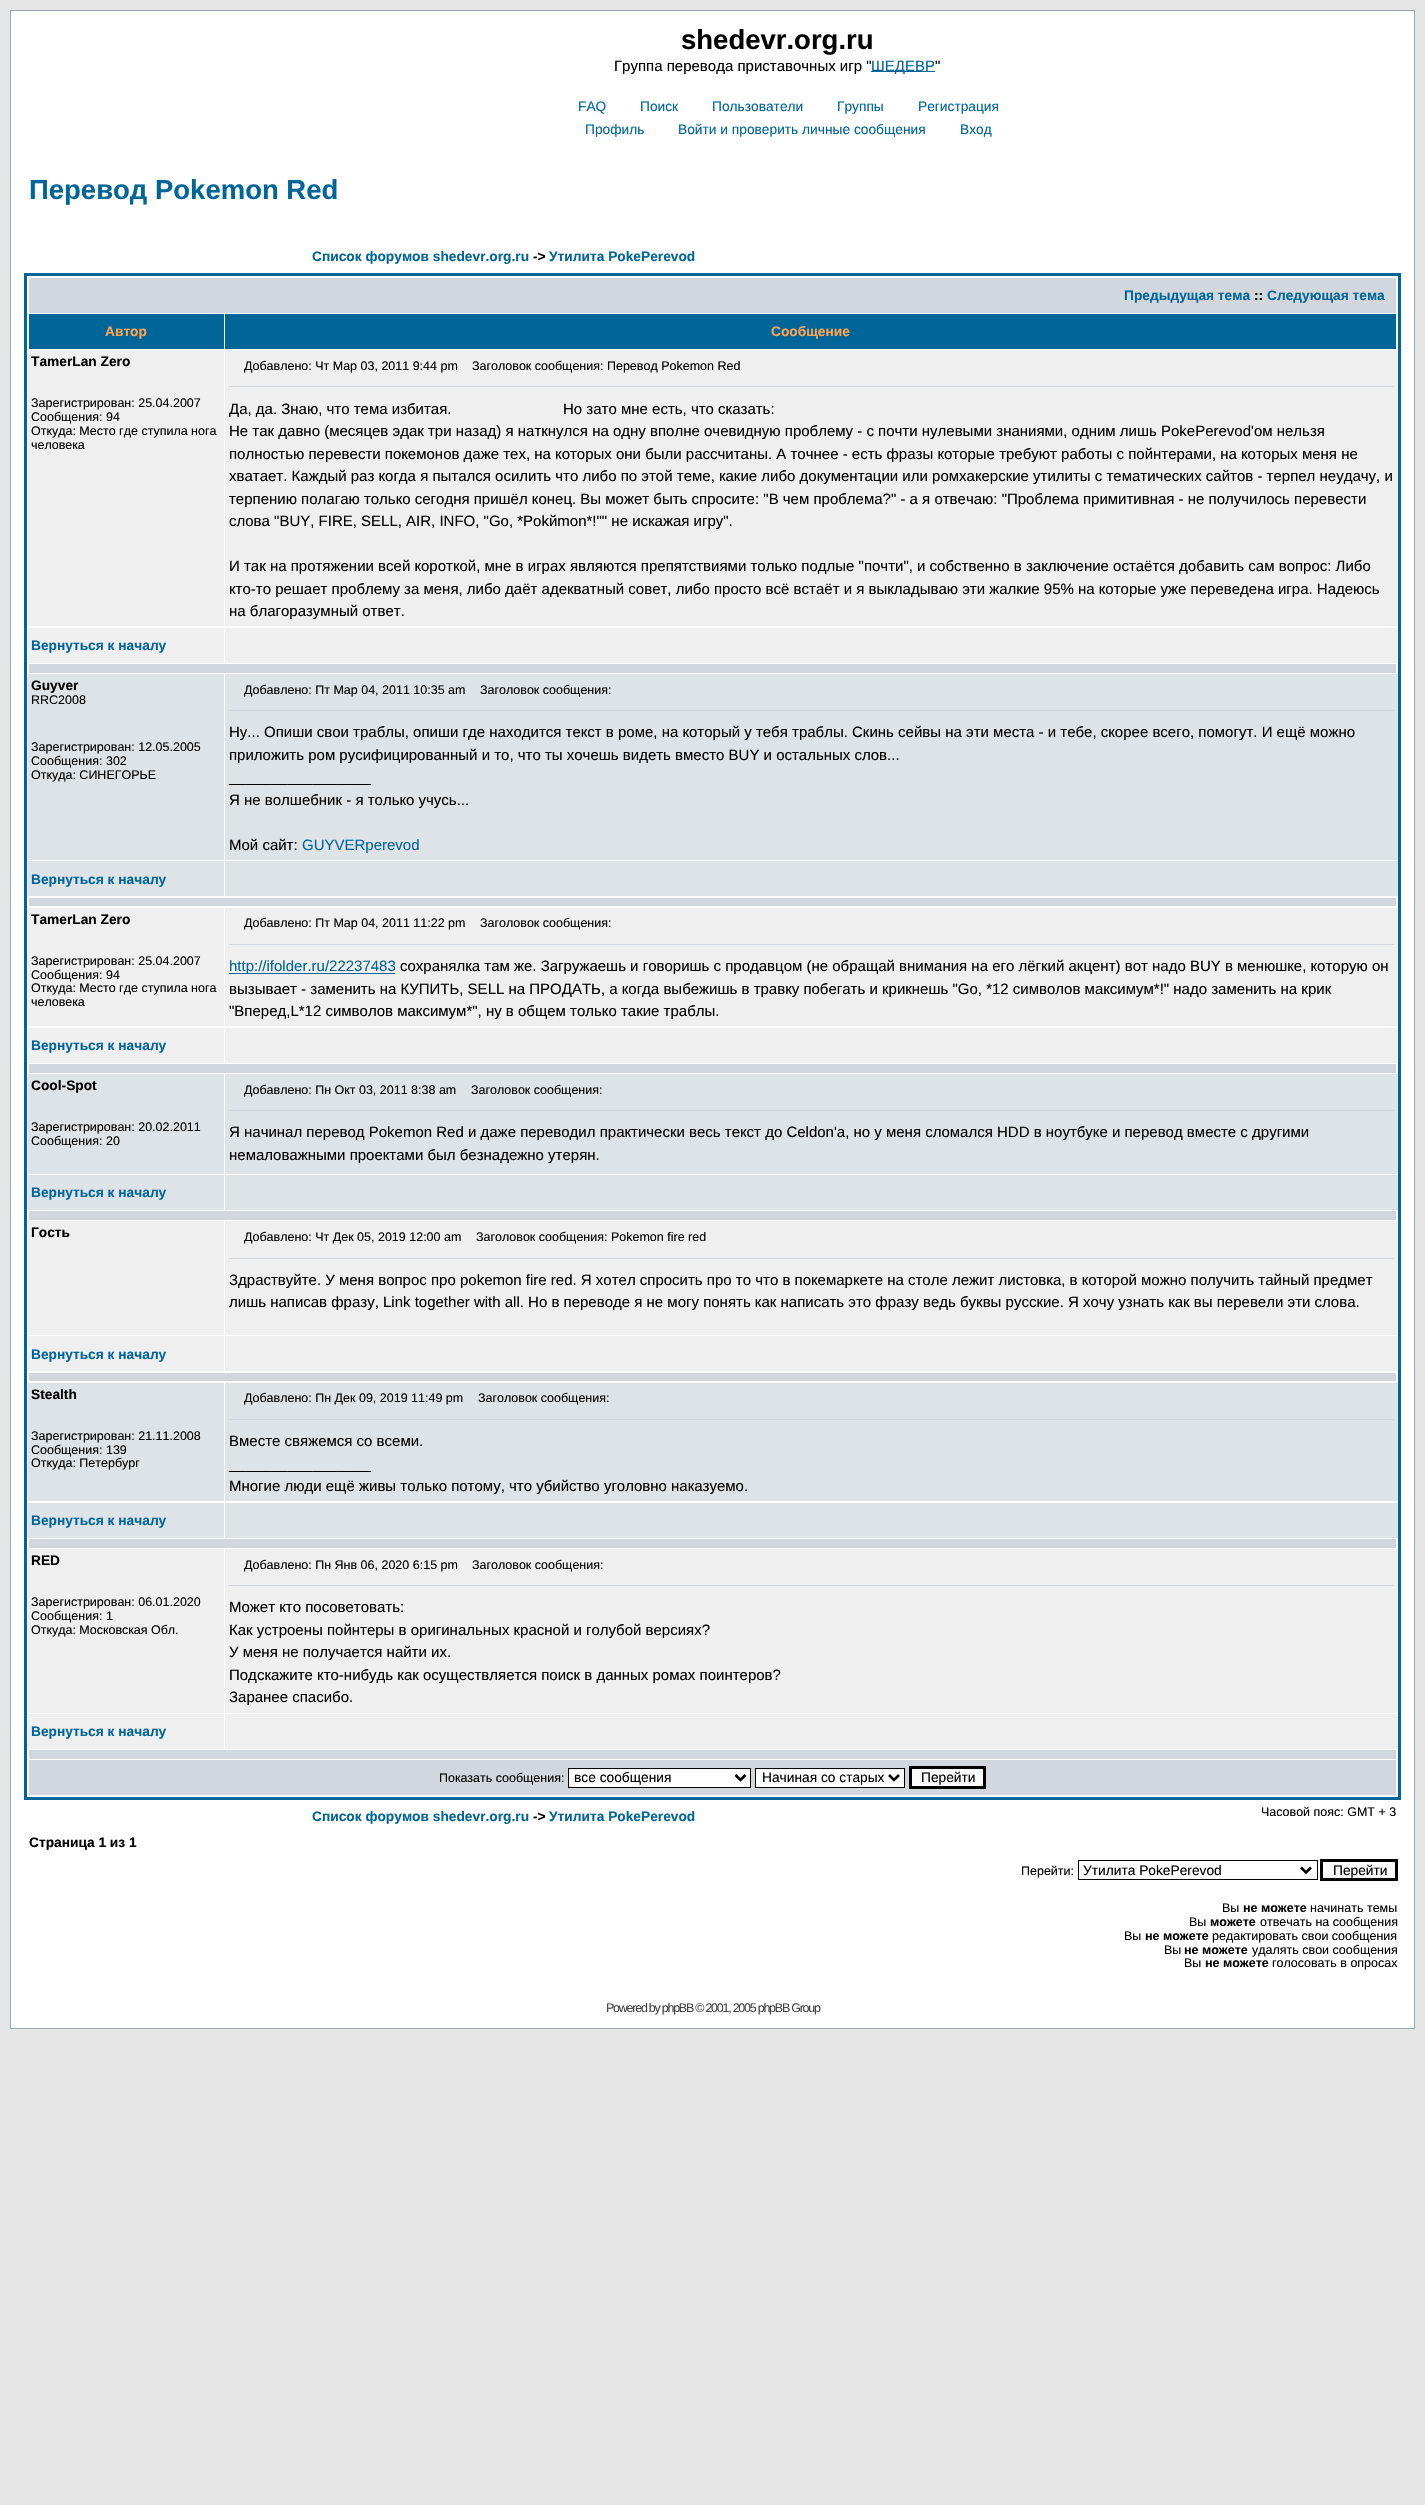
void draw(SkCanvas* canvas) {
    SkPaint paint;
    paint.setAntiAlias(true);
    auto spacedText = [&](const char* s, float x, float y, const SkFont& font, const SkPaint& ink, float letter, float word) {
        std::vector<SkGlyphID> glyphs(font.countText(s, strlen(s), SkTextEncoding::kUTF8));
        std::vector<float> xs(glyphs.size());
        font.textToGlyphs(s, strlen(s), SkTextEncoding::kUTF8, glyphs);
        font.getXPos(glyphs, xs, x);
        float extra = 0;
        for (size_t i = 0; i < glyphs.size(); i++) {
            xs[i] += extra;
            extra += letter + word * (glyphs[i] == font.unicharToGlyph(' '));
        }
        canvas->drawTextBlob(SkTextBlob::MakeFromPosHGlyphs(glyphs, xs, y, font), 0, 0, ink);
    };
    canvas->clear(0xFFE5E5E5);
    paint.setColor(0xFFFFFFFF);
    canvas->drawRect(SkRect::MakeXYWH(10.5f, 10.5f, 1404, 2018), paint);
    paint.setStyle(SkPaint::kStroke_Style);
    paint.setStrokeWidth(1);
    paint.setColor(0xFF98AAB1);
    canvas->drawRect(SkRect::MakeXYWH(10.5f, 10.5f, 1404, 2018), paint);
    SkFont font1(fontMgr->matchFamilyStyle("Liberation Sans", SkFontStyle::Bold()), 27.5f);
    font1.setSubpixel(true);
    paint.setStyle(SkPaint::kFill_Style);
    paint.setColor(0xFF000000);
    canvas->drawString("shedevr.org.ru", 681, 49, font1, paint);
    SkFont font2(fontMgr->matchFamilyStyle("Liberation Sans", SkFontStyle::Normal()), 15);
    font2.setSubpixel(true);
    canvas->drawString("Группа перевода приставочных игр \"", 614, 71, font2, paint);
    paint.setColor(0xFF006699);
    canvas->drawRect(SkRect::MakeXYWH(871, 71, 64, 1), paint);
    canvas->drawString("ШЕДЕВР", 871, 71, font2, paint);
    paint.setColor(0xFF000000);
    canvas->drawString("\"", 935, 71, font2, paint);
    SkFont font3(fontMgr->matchFamilyStyle("Liberation Sans", SkFontStyle::Normal()), 13.75f);
    font3.setSubpixel(true);
    paint.setColor(0xFF006699);
    canvas->drawString("FAQ", 578, 111, font3, paint);
    canvas->drawString("Поиск", 640, 111, font3, paint);
    canvas->drawString("Пользователи", 712, 111, font3, paint);
    canvas->drawString("Группы", 837, 111, font3, paint);
    canvas->drawString("Регистрация", 918, 111, font3, paint);
    canvas->drawString("Профиль", 585, 134, font3, paint);
    canvas->drawString("Войти и проверить личные сообщения", 678, 134, font3, paint);
    canvas->drawString("Вход", 960, 134, font3, paint);
    canvas->drawString("Перевод Pokemon Red", 29, 199, font1, paint);
    SkFont font4(fontMgr->matchFamilyStyle("Liberation Sans", SkFontStyle::Bold()), 13.75f);
    font4.setSubpixel(true);
    canvas->drawString("Список форумов shedevr.org.ru", 312, 261, font4, paint);
    paint.setColor(0xFF000000);
    canvas->drawString("->", 533, 261, font4, paint);
    paint.setColor(0xFF006699);
    canvas->drawString("Утилита PokePerevod", 549, 261, font4, paint);
    paint.setStyle(SkPaint::kStroke_Style);
    paint.setStrokeWidth(3);
    canvas->drawRect(SkRect::MakeXYWH(25.5f, 274.5f, 1374, 1524), paint);
    paint.setStyle(SkPaint::kFill_Style);
    paint.setColor(0xFFD1D7DC);
    canvas->drawRect(SkRect::MakeXYWH(29, 278, 1367, 35), paint);
    paint.setColor(0xFF006699);
    canvas->drawString("Предыдущая тема", 1124, 300, font4, paint);
    paint.setColor(0xFF000000);
    canvas->drawString("::", 1254, 300, font4, paint);
    paint.setColor(0xFF006699);
    canvas->drawString("Следующая тема", 1267, 300, font4, paint);
    canvas->drawRect(SkRect::MakeXYWH(29, 314, 195, 35), paint);
    paint.setColor(0xFFFFA34F);
    canvas->drawString("Автор", 105, 336, font4, paint);
    paint.setColor(0xFF006699);
    canvas->drawRect(SkRect::MakeXYWH(225, 314, 1171, 35), paint);
    paint.setColor(0xFFFFA34F);
    canvas->drawString("Сообщение", 771, 336, font4, paint);
    paint.setColor(0xFFEFEFEF);
    canvas->drawRect(SkRect::MakeXYWH(28, 350, 196, 276), paint);
    paint.setColor(0xFF000000);
    canvas->drawString("TamerLan Zero", 31, 366, font4, paint);
    SkFont font5(fontMgr->matchFamilyStyle("Liberation Sans", SkFontStyle::Normal()), 12.5f);
    font5.setSubpixel(true);
    canvas->drawString("Зарегистрирован: 25.04.2007", 31, 407, font5, paint);
    canvas->drawString("Сообщения: 94", 31, 421, font5, paint);
    canvas->drawString("Откуда: Место где ступила нога", 31, 435, font5, paint);
    canvas->drawString("человека", 31, 449, font5, paint);
    paint.setColor(0xFFEFEFEF);
    canvas->drawRect(SkRect::MakeXYWH(225, 350, 1173, 276), paint);
    paint.setColor(0xFF000000);
    canvas->drawString("Добавлено: Чт Мар 03, 2011 9:44 pm", 244, 370, font5, paint);
    canvas->drawString("Заголовок сообщения: Перевод Pokemon Red", 472, 370, font5, paint);
    paint.setColor(0xFFD1D7DC);
    canvas->drawRect(SkRect::MakeXYWH(229, 386, 1165, 1), paint);
    paint.setColor(0xFF000000);
    canvas->drawString("Да, да. Знаю, что тема избитая.", 229, 414, font2, paint);
    canvas->drawString("Но зато мне есть, что сказать:", 563, 414, font2, paint);
    canvas->drawString("Не так давно (месяцев эдак три назад) я наткнулся на одну вполне очевидную проблему - с почти нулевыми знаниями, одним лишь PokePerevod'ом нельзя", 229, 436, font2, paint);
    canvas->drawString("полностью перевести покемонов даже тех, на которых они были рассчитаны. А точнее - есть фразы которые требуют работы с пойнтерами, на которых меня не", 229, 459, font2, paint);
    canvas->drawString("хватает. Каждый раз когда я пытался осилить что либо по этой теме, какие либо документации или ромхакерские утилиты с тематических сайтов - терпел неудачу, и", 229, 481, font2, paint);
    canvas->drawString("терпению полагаю только сегодня пришёл конец. Вы может быть спросите: \"В чем проблема?\" - а я отвечаю: \"Проблема примитивная - не получилось перевести", 229, 504, font2, paint);
    canvas->drawString("слова \"BUY, FIRE, SELL, AIR, INFO, \"Go, *Pokйmon*!\"\" не искажая игру\".", 229, 526, font2, paint);
    canvas->drawString("И так на протяжении всей короткой, мне в играх являются препятствиями только подлые \"почти\", и собственно в заключение остаётся добавить сам вопрос: Либо", 229, 571, font2, paint);
    canvas->drawString("кто-то решает проблему за меня, либо даёт адекватный совет, либо просто всё встаёт и я выкладываю эти жалкие 95% на которые уже переведена игра. Надеюсь", 229, 594, font2, paint);
    canvas->drawString("на благоразумный ответ.", 229, 616, font2, paint);
    paint.setColor(0xFFEFEFEF);
    canvas->drawRect(SkRect::MakeXYWH(28, 628, 196, 35), paint);
    paint.setColor(0xFF006699);
    canvas->drawString("Вернуться к началу", 31, 650, font4, paint);
    paint.setColor(0xFFEFEFEF);
    canvas->drawRect(SkRect::MakeXYWH(225, 628, 1173, 35), paint);
    paint.setColor(0xFFD1D7DC);
    canvas->drawRect(SkRect::MakeXYWH(29, 664, 1367, 9), paint);
    paint.setColor(0xFFDEE3E7);
    canvas->drawRect(SkRect::MakeXYWH(28, 674, 196, 186), paint);
    paint.setColor(0xFF000000);
    canvas->drawString("Guyver", 31, 690, font4, paint);
    canvas->drawString("RRC2008", 31, 704, font5, paint);
    canvas->drawString("Зарегистрирован: 12.05.2005", 31, 751, font5, paint);
    canvas->drawString("Сообщения: 302", 31, 765, font5, paint);
    canvas->drawString("Откуда: СИНЕГОРЬЕ", 31, 779, font5, paint);
    paint.setColor(0xFFDEE3E7);
    canvas->drawRect(SkRect::MakeXYWH(225, 674, 1173, 186), paint);
    paint.setColor(0xFF000000);
    canvas->drawString("Добавлено: Пт Мар 04, 2011 10:35 am", 244, 694, font5, paint);
    canvas->drawString("Заголовок сообщения:", 480, 694, font5, paint);
    paint.setColor(0xFFD1D7DC);
    canvas->drawRect(SkRect::MakeXYWH(229, 710, 1165, 1), paint);
    paint.setColor(0xFF000000);
    canvas->drawString("Ну... Опиши свои траблы, опиши где находится текст в роме, на который у тебя траблы. Скинь сейвы на эти места - и тебе, скорее всего, помогут. И ещё можно", 229, 737, font2, paint);
    canvas->drawString("приложить ром русифицированный и то, что ты хочешь видеть вместо BUY и остальных слов...", 229, 760, font2, paint);
    canvas->drawString("_________________", 229, 782, font2, paint);
    canvas->drawString("Я не волшебник - я только учусь...", 229, 805, font2, paint);
    canvas->drawString("Мой сайт:", 229, 850, font2, paint);
    paint.setColor(0xFF006699);
    canvas->drawString("GUYVERperevod", 302, 850, font2, paint);
    paint.setColor(0xFFDEE3E7);
    canvas->drawRect(SkRect::MakeXYWH(28, 861, 196, 35), paint);
    paint.setColor(0xFF006699);
    canvas->drawString("Вернуться к началу", 31, 884, font4, paint);
    paint.setColor(0xFFDEE3E7);
    canvas->drawRect(SkRect::MakeXYWH(225, 861, 1173, 35), paint);
    paint.setColor(0xFFD1D7DC);
    canvas->drawRect(SkRect::MakeXYWH(29, 898, 1367, 8), paint);
    paint.setColor(0xFFEFEFEF);
    canvas->drawRect(SkRect::MakeXYWH(28, 908, 196, 118), paint);
    paint.setColor(0xFF000000);
    canvas->drawString("TamerLan Zero", 31, 924, font4, paint);
    canvas->drawString("Зарегистрирован: 25.04.2007", 31, 965, font5, paint);
    canvas->drawString("Сообщения: 94", 31, 979, font5, paint);
    canvas->drawString("Откуда: Место где ступила нога", 31, 992, font5, paint);
    canvas->drawString("человека", 31, 1006, font5, paint);
    paint.setColor(0xFFEFEFEF);
    canvas->drawRect(SkRect::MakeXYWH(225, 908, 1173, 118), paint);
    paint.setColor(0xFF000000);
    canvas->drawString("Добавлено: Пт Мар 04, 2011 11:22 pm", 244, 927, font5, paint);
    canvas->drawString("Заголовок сообщения:", 480, 927, font5, paint);
    paint.setColor(0xFFD1D7DC);
    canvas->drawRect(SkRect::MakeXYWH(229, 944, 1165, 1), paint);
    paint.setColor(0xFF006699);
    canvas->drawRect(SkRect::MakeXYWH(229, 973, 166, 1), paint);
    canvas->drawString("http://ifolder.ru/22237483", 229, 971, font2, paint);
    paint.setColor(0xFF000000);
    canvas->drawString("сохранялка там же. Загружаешь и говоришь с продавцом (не обращай внимания на его лёгкий акцент) вот надо BUY в менюшке, которую он", 400, 971, font2, paint);
    canvas->drawString("вызывает - заменить на КУПИТЬ, SELL на ПРОДАТЬ, а когда выбежишь в травку побегать и крикнешь \"Go, *12 символов максимум*!\" надо заменить на крик", 229, 994, font2, paint);
    canvas->drawString("\"Вперед,L*12 символов максимум*\", ну в общем только такие траблы.", 229, 1016, font2, paint);
    paint.setColor(0xFFEFEFEF);
    canvas->drawRect(SkRect::MakeXYWH(28, 1028, 196, 35), paint);
    paint.setColor(0xFF006699);
    canvas->drawString("Вернуться к началу", 31, 1050, font4, paint);
    paint.setColor(0xFFEFEFEF);
    canvas->drawRect(SkRect::MakeXYWH(225, 1028, 1173, 35), paint);
    paint.setColor(0xFFD1D7DC);
    canvas->drawRect(SkRect::MakeXYWH(29, 1064, 1367, 9), paint);
    paint.setColor(0xFFDEE3E7);
    canvas->drawRect(SkRect::MakeXYWH(28, 1074, 196, 100), paint);
    paint.setColor(0xFF000000);
    canvas->drawString("Cool-Spot", 31, 1090, font4, paint);
    canvas->drawString("Зарегистрирован: 20.02.2011", 31, 1131, font5, paint);
    canvas->drawString("Сообщения: 20", 31, 1145, font5, paint);
    paint.setColor(0xFFDEE3E7);
    canvas->drawRect(SkRect::MakeXYWH(225, 1074, 1173, 100), paint);
    paint.setColor(0xFF000000);
    canvas->drawString("Добавлено: Пн Окт 03, 2011 8:38 am", 244, 1094, font5, paint);
    canvas->drawString("Заголовок сообщения:", 471, 1094, font5, paint);
    paint.setColor(0xFFD1D7DC);
    canvas->drawRect(SkRect::MakeXYWH(229, 1110, 1165, 1), paint);
    paint.setColor(0xFF000000);
    canvas->drawString("Я начинал перевод Pokemon Red и даже переводил практически весь текст до Celdon'а, но у меня сломался HDD в ноутбуке и перевод вместе с другими", 229, 1137, font2, paint);
    canvas->drawString("немаловажными проектами был безнадежно утерян.", 229, 1160, font2, paint);
    paint.setColor(0xFFDEE3E7);
    canvas->drawRect(SkRect::MakeXYWH(28, 1175, 196, 35), paint);
    paint.setColor(0xFF006699);
    canvas->drawString("Вернуться к началу", 31, 1197, font4, paint);
    paint.setColor(0xFFDEE3E7);
    canvas->drawRect(SkRect::MakeXYWH(225, 1175, 1173, 35), paint);
    paint.setColor(0xFFD1D7DC);
    canvas->drawRect(SkRect::MakeXYWH(29, 1211, 1367, 9), paint);
    paint.setColor(0xFFEFEFEF);
    canvas->drawRect(SkRect::MakeXYWH(28, 1221, 196, 114), paint);
    paint.setColor(0xFF000000);
    canvas->drawString("Гость", 31, 1237, font4, paint);
    paint.setColor(0xFFEFEFEF);
    canvas->drawRect(SkRect::MakeXYWH(225, 1221, 1173, 114), paint);
    paint.setColor(0xFF000000);
    canvas->drawString("Добавлено: Чт Дек 05, 2019 12:00 am", 244, 1241, font5, paint);
    canvas->drawString("Заголовок сообщения: Pokemon fire red", 476, 1241, font5, paint);
    paint.setColor(0xFFD1D7DC);
    canvas->drawRect(SkRect::MakeXYWH(229, 1258, 1165, 1), paint);
    paint.setColor(0xFF000000);
    canvas->drawString("Здраствуйте. У меня вопрос про pokemon fire red. Я хотел спросить про то что в покемаркете на столе лежит листовка, в которой можно получить тайный предмет", 229, 1285, font2, paint);
    canvas->drawString("лишь написав фразу, Link together with all. Но в переводе я не могу понять как написать это фразу ведь буквы русские. Я хочу узнать как вы перевели эти слова.", 229, 1307, font2, paint);
    paint.setColor(0xFFEFEFEF);
    canvas->drawRect(SkRect::MakeXYWH(28, 1336, 196, 35), paint);
    paint.setColor(0xFF006699);
    canvas->drawString("Вернуться к началу", 31, 1359, font4, paint);
    paint.setColor(0xFFEFEFEF);
    canvas->drawRect(SkRect::MakeXYWH(225, 1336, 1173, 35), paint);
    paint.setColor(0xFFD1D7DC);
    canvas->drawRect(SkRect::MakeXYWH(29, 1373, 1367, 8), paint);
    paint.setColor(0xFFDEE3E7);
    canvas->drawRect(SkRect::MakeXYWH(28, 1383, 196, 118), paint);
    paint.setColor(0xFF000000);
    canvas->drawString("Stealth", 31, 1399, font4, paint);
    canvas->drawString("Зарегистрирован: 21.11.2008", 31, 1440, font5, paint);
    canvas->drawString("Сообщения: 139", 31, 1454, font5, paint);
    canvas->drawString("Откуда: Петербург", 31, 1467, font5, paint);
    paint.setColor(0xFFDEE3E7);
    canvas->drawRect(SkRect::MakeXYWH(225, 1383, 1173, 118), paint);
    paint.setColor(0xFF000000);
    canvas->drawString("Добавлено: Пн Дек 09, 2019 11:49 pm", 244, 1402, font5, paint);
    canvas->drawString("Заголовок сообщения:", 478, 1402, font5, paint);
    paint.setColor(0xFFD1D7DC);
    canvas->drawRect(SkRect::MakeXYWH(229, 1419, 1165, 1), paint);
    paint.setColor(0xFF000000);
    canvas->drawString("Вместе свяжемся со всеми.", 229, 1446, font2, paint);
    canvas->drawString("_________________", 229, 1469, font2, paint);
    canvas->drawString("Многие люди ещё живы только потому, что убийство уголовно наказуемо.", 229, 1491, font2, paint);
    paint.setColor(0xFFDEE3E7);
    canvas->drawRect(SkRect::MakeXYWH(28, 1503, 196, 35), paint);
    paint.setColor(0xFF006699);
    canvas->drawString("Вернуться к началу", 31, 1525, font4, paint);
    paint.setColor(0xFFDEE3E7);
    canvas->drawRect(SkRect::MakeXYWH(225, 1503, 1173, 35), paint);
    paint.setColor(0xFFD1D7DC);
    canvas->drawRect(SkRect::MakeXYWH(29, 1539, 1367, 9), paint);
    paint.setColor(0xFFEFEFEF);
    canvas->drawRect(SkRect::MakeXYWH(28, 1549, 196, 164), paint);
    paint.setColor(0xFF000000);
    canvas->drawString("RED", 31, 1565, font4, paint);
    canvas->drawString("Зарегистрирован: 06.01.2020", 31, 1606, font5, paint);
    canvas->drawString("Сообщения: 1", 31, 1620, font5, paint);
    canvas->drawString("Откуда: Московская Обл.", 31, 1634, font5, paint);
    paint.setColor(0xFFEFEFEF);
    canvas->drawRect(SkRect::MakeXYWH(225, 1549, 1173, 164), paint);
    paint.setColor(0xFF000000);
    canvas->drawString("Добавлено: Пн Янв 06, 2020 6:15 pm", 244, 1569, font5, paint);
    canvas->drawString("Заголовок сообщения:", 472, 1569, font5, paint);
    paint.setColor(0xFFD1D7DC);
    canvas->drawRect(SkRect::MakeXYWH(229, 1585, 1165, 1), paint);
    paint.setColor(0xFF000000);
    canvas->drawString("Может кто посоветовать:", 229, 1612, font2, paint);
    canvas->drawString("Как устроены пойнтеры в оригинальных красной и голубой версиях?", 229, 1635, font2, paint);
    canvas->drawString("У меня не получается найти их.", 229, 1657, font2, paint);
    canvas->drawString("Подскажите кто-нибудь как осуществляется поиск в данных ромах поинтеров?", 229, 1680, font2, paint);
    canvas->drawString("Заранее спасибо.", 229, 1702, font2, paint);
    paint.setColor(0xFFEFEFEF);
    canvas->drawRect(SkRect::MakeXYWH(28, 1714, 196, 35), paint);
    paint.setColor(0xFF006699);
    canvas->drawString("Вернуться к началу", 31, 1736, font4, paint);
    paint.setColor(0xFFEFEFEF);
    canvas->drawRect(SkRect::MakeXYWH(225, 1714, 1173, 35), paint);
    paint.setColor(0xFFD1D7DC);
    canvas->drawRect(SkRect::MakeXYWH(29, 1750, 1367, 9), paint);
    canvas->drawRect(SkRect::MakeXYWH(29, 1760, 1367, 35), paint);
    paint.setColor(0xFF000000);
    canvas->drawString("Показать сообщения:", 439, 1782, font5, paint);
    paint.setColor(0xFFFFFFFF);
    canvas->drawRect(SkRect::MakeXYWH(568.5f, 1768.5f, 182, 19), paint);
    paint.setStyle(SkPaint::kStroke_Style);
    paint.setStrokeWidth(1);
    paint.setColor(0xFF000000);
    canvas->drawRect(SkRect::MakeXYWH(568.5f, 1768.5f, 182, 19), paint);
    paint.setStrokeWidth(2.5f);
    canvas->drawPath(SkPathBuilder().moveTo(735.5f, 1775).lineTo(740.5f, 1780).lineTo(745.5f, 1775).detach(), paint);
    paint.setStyle(SkPaint::kFill_Style);
    canvas->drawString("все сообщения", 574, 1782, font3, paint);
    paint.setColor(0xFFFFFFFF);
    canvas->drawRect(SkRect::MakeXYWH(755.5f, 1768.5f, 149, 19), paint);
    paint.setStyle(SkPaint::kStroke_Style);
    paint.setStrokeWidth(1);
    paint.setColor(0xFF000000);
    canvas->drawRect(SkRect::MakeXYWH(755.5f, 1768.5f, 149, 19), paint);
    paint.setStrokeWidth(2.5f);
    canvas->drawPath(SkPathBuilder().moveTo(889, 1775).lineTo(894, 1780).lineTo(899, 1775).detach(), paint);
    paint.setStyle(SkPaint::kFill_Style);
    canvas->drawString("Начиная со старых", 762, 1782, font3, paint);
    paint.setColor(0xFFFAFAFA);
    canvas->drawRect(SkRect::MakeXYWH(910.5f, 1767.5f, 74, 20), paint);
    paint.setStyle(SkPaint::kStroke_Style);
    paint.setStrokeWidth(3);
    paint.setColor(0xFF000000);
    canvas->drawRect(SkRect::MakeXYWH(910.5f, 1767.5f, 74, 20), paint);
    paint.setStyle(SkPaint::kFill_Style);
    canvas->drawString("Перейти", 921, 1782, font3, paint);
    paint.setColor(0xFF006699);
    canvas->drawString("Список форумов shedevr.org.ru", 312, 1821, font4, paint);
    paint.setColor(0xFF000000);
    canvas->drawString("->", 533, 1821, font4, paint);
    paint.setColor(0xFF006699);
    canvas->drawString("Утилита PokePerevod", 549, 1821, font4, paint);
    paint.setColor(0xFF000000);
    canvas->drawString("Часовой пояс: GMT + 3", 1261, 1816, font5, paint);
    canvas->drawString("Страница 1 из 1", 29, 1847, font4, paint);
    canvas->drawString("Перейти:", 1021, 1875, font5, paint);
    paint.setStyle(SkPaint::kStroke_Style);
    paint.setStrokeWidth(1);
    canvas->drawRect(SkRect::MakeXYWH(1078.5f, 1860.5f, 239, 19), paint);
    paint.setStrokeWidth(2.5f);
    canvas->drawPath(SkPathBuilder().moveTo(1301, 1867.5f).lineTo(1306, 1872.5f).lineTo(1311, 1867.5f).detach(), paint);
    paint.setStyle(SkPaint::kFill_Style);
    canvas->drawString("Утилита PokePerevod", 1083, 1875, font3, paint);
    paint.setColor(0xFFFAFAFA);
    canvas->drawRect(SkRect::MakeXYWH(1321.5f, 1860.5f, 75, 19), paint);
    paint.setStyle(SkPaint::kStroke_Style);
    paint.setStrokeWidth(3);
    paint.setColor(0xFF000000);
    canvas->drawRect(SkRect::MakeXYWH(1321.5f, 1860.5f, 75, 19), paint);
    paint.setStyle(SkPaint::kFill_Style);
    canvas->drawString("Перейти", 1333, 1875, font3, paint);
    canvas->drawString("Вы", 1222, 1912, font5, paint);
    SkFont font6(fontMgr->matchFamilyStyle("Liberation Sans", SkFontStyle::Bold()), 12.5f);
    font6.setSubpixel(true);
    canvas->drawString("не можете", 1243, 1912, font6, paint);
    canvas->drawString("начинать темы", 1310, 1912, font5, paint);
    canvas->drawString("Вы", 1189, 1926, font5, paint);
    canvas->drawString("можете", 1210, 1926, font6, paint);
    canvas->drawString("отвечать на сообщения", 1260, 1926, font5, paint);
    canvas->drawString("Вы", 1124, 1940, font5, paint);
    canvas->drawString("не можете", 1145, 1940, font6, paint);
    canvas->drawString("редактировать свои сообщения", 1212, 1940, font5, paint);
    canvas->drawString("Вы", 1164, 1954, font5, paint);
    canvas->drawString("не можете", 1184, 1954, font6, paint);
    canvas->drawString("удалять свои сообщения", 1252, 1954, font5, paint);
    canvas->drawString("Вы", 1184, 1967, font5, paint);
    canvas->drawString("не можете", 1205, 1967, font6, paint);
    canvas->drawString("голосовать в опросах", 1272, 1967, font5, paint);
    paint.setColor(0xFF444444);
    spacedText("Powered by phpBB © 2001, 2005 phpBB Group", 606, 2012, font5, paint, -1.25f, 0);
}
